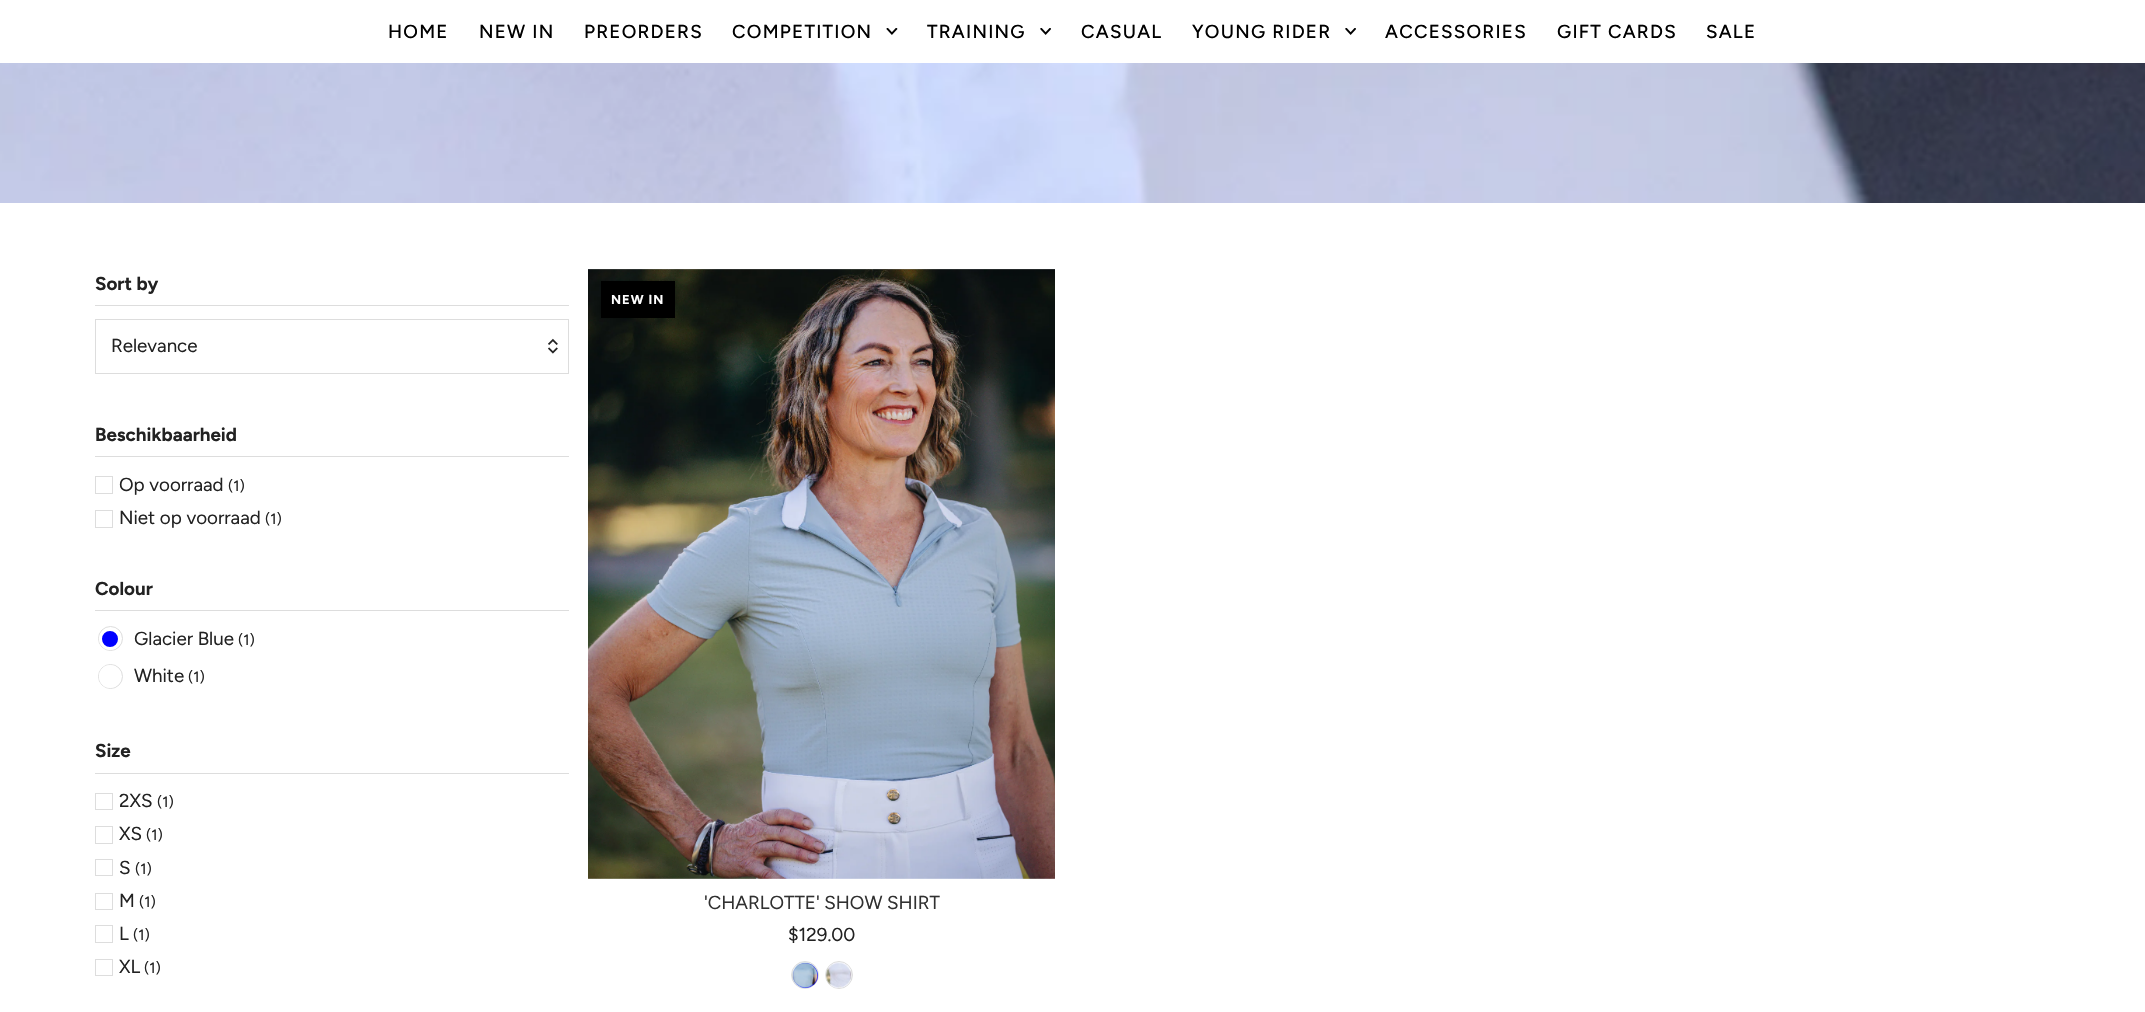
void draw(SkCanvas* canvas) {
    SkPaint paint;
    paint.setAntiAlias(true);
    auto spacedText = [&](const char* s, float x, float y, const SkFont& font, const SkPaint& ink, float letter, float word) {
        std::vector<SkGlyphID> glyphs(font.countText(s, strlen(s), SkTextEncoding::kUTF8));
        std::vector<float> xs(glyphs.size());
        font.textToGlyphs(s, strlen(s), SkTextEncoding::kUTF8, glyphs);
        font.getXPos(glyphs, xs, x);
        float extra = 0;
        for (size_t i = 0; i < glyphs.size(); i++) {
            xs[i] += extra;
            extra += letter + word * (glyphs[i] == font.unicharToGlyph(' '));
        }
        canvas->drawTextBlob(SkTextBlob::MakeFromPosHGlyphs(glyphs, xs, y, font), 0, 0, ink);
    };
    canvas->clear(0xFFFFFFFF);
    SkFont font1(fontMgr->matchFamilyStyle("Figtree", SkFontStyle(500, SkFontStyle::kNormal_Width, SkFontStyle::kUpright_Slant)), 18.75f);
    font1.setSubpixel(true);
    paint.setColor(0xFF000000);
    spacedText("HOME", 388, 38, font1, paint, 1.25f, 0);
    spacedText("NEW IN", 479, 38, font1, paint, 1.25f, 0);
    spacedText("PREORDERS", 584, 38, font1, paint, 1.25f, 0);
    spacedText("COMPETITION", 732, 38, font1, paint, 1.25f, 0);
    canvas->drawImageRect(SkImages::DeferredFromEncodedData(SkData::MakeFromFileName("img1.png")), SkRect::MakeXYWH(886, 28, 12, 7), SkSamplingOptions());
    spacedText("TRAINING", 927, 38, font1, paint, 1.25f, 0);
    canvas->drawImageRect(SkImages::DeferredFromEncodedData(SkData::MakeFromFileName("img2.png")), SkRect::MakeXYWH(1040, 28, 11, 7), SkSamplingOptions());
    spacedText("CASUAL", 1081, 38, font1, paint, 1.25f, 0);
    spacedText("YOUNG RIDER", 1192, 38, font1, paint, 1.25f, 0);
    canvas->drawImageRect(SkImages::DeferredFromEncodedData(SkData::MakeFromFileName("img2.png")), SkRect::MakeXYWH(1345, 28, 11, 7), SkSamplingOptions());
    spacedText("ACCESSORIES", 1385, 38, font1, paint, 1.25f, 0);
    spacedText("GIFT CARDS", 1557, 38, font1, paint, 1.25f, 0);
    spacedText("SALE", 1706, 38, font1, paint, 1.25f, 0);
    canvas->drawImageRect(SkImages::DeferredFromEncodedData(SkData::MakeFromFileName("img3.png")), SkRect::MakeXYWH(0, 63, 2145, 140), SkSamplingOptions());
    paint.setColor(0xFFDDDDDD);
    canvas->drawRect(SkRect::MakeXYWH(95, 305, 474, 1), paint);
    SkFont font2(fontMgr->matchFamilyStyle("Figtree", SkFontStyle::Bold()), 18.75f);
    font2.setSubpixel(true);
    paint.setColor(0xFF222222);
    canvas->drawString("Sort by", 95, 290, font2, paint);
    paint.setStyle(SkPaint::kStroke_Style);
    paint.setStrokeWidth(1);
    paint.setColor(0xFFDDDDDD);
    canvas->drawRect(SkRect::MakeXYWH(95.5f, 319.5f, 473, 54), paint);
    SkFont font3(fontMgr->matchFamilyStyle("Figtree", SkFontStyle::Normal()), 18.75f);
    font3.setSubpixel(true);
    paint.setStyle(SkPaint::kFill_Style);
    paint.setColor(0xFF222222);
    canvas->drawString("Relevance", 111, 352, font3, paint);
    canvas->drawImageRect(SkImages::DeferredFromEncodedData(SkData::MakeFromFileName("img4.png")), SkRect::MakeXYWH(548, 338, 10, 16), SkSamplingOptions());
    paint.setColor(0xFFDDDDDD);
    canvas->drawRect(SkRect::MakeXYWH(95, 456, 474, 1), paint);
    paint.setColor(0xFF222222);
    canvas->drawString("Beschikbaarheid", 95, 441, font2, paint);
    paint.setStyle(SkPaint::kStroke_Style);
    paint.setColor(0xFFDDDDDD);
    canvas->drawRect(SkRect::MakeXYWH(95.5f, 476.5f, 17, 17), paint);
    paint.setStyle(SkPaint::kFill_Style);
    paint.setColor(0xFF222222);
    canvas->drawString("Op voorraad", 119, 491, font3, paint);
    SkFont font4(fontMgr->matchFamilyStyle("Figtree", SkFontStyle::Normal()), 15);
    font4.setSubpixel(true);
    canvas->drawString("(1)", 228, 491, font4, paint);
    paint.setStyle(SkPaint::kStroke_Style);
    paint.setColor(0xFFDDDDDD);
    canvas->drawRect(SkRect::MakeXYWH(95.5f, 510.5f, 17, 17), paint);
    paint.setStyle(SkPaint::kFill_Style);
    paint.setColor(0xFF222222);
    canvas->drawString("Niet op voorraad", 119, 524, font3, paint);
    canvas->drawString("(1)", 265, 524, font4, paint);
    paint.setColor(0xFFDDDDDD);
    canvas->drawRect(SkRect::MakeXYWH(95, 610, 474, 1), paint);
    paint.setColor(0xFF222222);
    canvas->drawString("Colour", 95, 595, font2, paint);
    paint.setStyle(SkPaint::kStroke_Style);
    paint.setColor(0xFFDDDDDD);
    canvas->drawCircle(110.5f, 638.5f, 12, paint);
    paint.setStyle(SkPaint::kFill_Style);
    paint.setColor(0xFF0000FF);
    canvas->drawCircle(110, 639, 9.5f, paint);
    paint.setStyle(SkPaint::kStroke_Style);
    paint.setStrokeWidth(3);
    paint.setColor(0xFFFFFFFF);
    canvas->drawCircle(110, 639, 9.5f, paint);
    paint.setStyle(SkPaint::kFill_Style);
    paint.setColor(0xFF222222);
    canvas->drawString("Glacier Blue", 134, 645, font3, paint);
    canvas->drawString("(1)", 238, 645, font4, paint);
    paint.setStyle(SkPaint::kStroke_Style);
    paint.setStrokeWidth(1);
    paint.setColor(0xFFDDDDDD);
    canvas->drawCircle(110.5f, 676.5f, 12, paint);
    paint.setStyle(SkPaint::kFill_Style);
    paint.setColor(0xFFFFFFFF);
    canvas->drawRoundRect(SkRect::MakeXYWH(100.5f, 666.5f, 19, 20), 9.5f, 9.5f, paint);
    paint.setStyle(SkPaint::kStroke_Style);
    paint.setStrokeWidth(3);
    canvas->drawRoundRect(SkRect::MakeXYWH(100.5f, 666.5f, 19, 20), 9.5f, 9.5f, paint);
    paint.setStyle(SkPaint::kFill_Style);
    paint.setColor(0xFF222222);
    canvas->drawString("White", 134, 682, font3, paint);
    canvas->drawString("(1)", 188, 682, font4, paint);
    paint.setColor(0xFFDDDDDD);
    canvas->drawRect(SkRect::MakeXYWH(95, 773, 474, 1), paint);
    paint.setColor(0xFF222222);
    canvas->drawString("Size", 95, 757, font2, paint);
    paint.setStyle(SkPaint::kStroke_Style);
    paint.setStrokeWidth(1);
    paint.setColor(0xFFDDDDDD);
    canvas->drawRect(SkRect::MakeXYWH(95.5f, 793.5f, 17, 16), paint);
    paint.setStyle(SkPaint::kFill_Style);
    paint.setColor(0xFF222222);
    canvas->drawString("2XS", 119, 807, font3, paint);
    canvas->drawString("(1)", 157, 807, font4, paint);
    paint.setStyle(SkPaint::kStroke_Style);
    paint.setColor(0xFFDDDDDD);
    canvas->drawRect(SkRect::MakeXYWH(95.5f, 826.5f, 17, 17), paint);
    paint.setStyle(SkPaint::kFill_Style);
    paint.setColor(0xFF222222);
    canvas->drawString("XS", 119, 840, font3, paint);
    canvas->drawString("(1)", 146, 840, font4, paint);
    paint.setStyle(SkPaint::kStroke_Style);
    paint.setColor(0xFFDDDDDD);
    canvas->drawRect(SkRect::MakeXYWH(95.5f, 859.5f, 17, 16), paint);
    paint.setStyle(SkPaint::kFill_Style);
    paint.setColor(0xFF222222);
    canvas->drawString("S", 119, 874, font3, paint);
    canvas->drawString("(1)", 135, 874, font4, paint);
    paint.setStyle(SkPaint::kStroke_Style);
    paint.setColor(0xFFDDDDDD);
    canvas->drawRect(SkRect::MakeXYWH(95.5f, 893.5f, 17, 16), paint);
    paint.setStyle(SkPaint::kFill_Style);
    paint.setColor(0xFF222222);
    canvas->drawString("M", 119, 907, font3, paint);
    canvas->drawString("(1)", 139, 907, font4, paint);
    paint.setStyle(SkPaint::kStroke_Style);
    paint.setColor(0xFFDDDDDD);
    canvas->drawRect(SkRect::MakeXYWH(95.5f, 925.5f, 17, 17), paint);
    paint.setStyle(SkPaint::kFill_Style);
    paint.setColor(0xFF222222);
    canvas->drawString("L", 119, 940, font3, paint);
    canvas->drawString("(1)", 133, 940, font4, paint);
    paint.setStyle(SkPaint::kStroke_Style);
    paint.setColor(0xFFDDDDDD);
    canvas->drawRect(SkRect::MakeXYWH(95.5f, 959.5f, 17, 16), paint);
    paint.setStyle(SkPaint::kFill_Style);
    paint.setColor(0xFF222222);
    canvas->drawString("XL", 119, 973, font3, paint);
    canvas->drawString("(1)", 144, 973, font4, paint);
    canvas->drawImageRect(SkImages::DeferredFromEncodedData(SkData::MakeFromFileName("img5.png")), SkRect::MakeXYWH(588, 269, 467, 610), SkSamplingOptions());
    paint.setColor(0xFF000000);
    canvas->drawRect(SkRect::MakeXYWH(601, 281, 74, 37), paint);
    SkFont font5(fontMgr->matchFamilyStyle("Figtree", SkFontStyle::Bold()), 13);
    font5.setSubpixel(true);
    paint.setColor(0xFFFFFFFF);
    spacedText("NEW IN", 611, 304, font5, paint, 1, 0);
    paint.setColor(0xFF313131);
    canvas->drawString("'CHARLOTTE' SHOW SHIRT", 704, 909, font3, paint);
    paint.setColor(0xFF222222);
    canvas->drawString("$129.00", 788, 941, font3, paint);
    paint.setStyle(SkPaint::kStroke_Style);
    paint.setColor(0xFFDDDDDD);
    canvas->drawCircle(805, 975, 13.5f, paint);
    paint.setStyle(SkPaint::kFill_Style);
    paint.setColor(0xFF0000FF);
    canvas->drawCircle(805.5f, 975.5f, 12.5f, paint);
    canvas->drawImageRect(SkImages::DeferredFromEncodedData(SkData::MakeFromFileName("img6.png")), SkRect::MakeXYWH(792, 962, 26, 26), SkSamplingOptions());
    paint.setStyle(SkPaint::kStroke_Style);
    paint.setColor(0xFFDDDDDD);
    canvas->drawCircle(839, 975, 13.5f, paint);
    paint.setStyle(SkPaint::kFill_Style);
    paint.setColor(0xFFFFFFFF);
    canvas->drawCircle(838.5f, 975.5f, 12.5f, paint);
    canvas->drawImageRect(SkImages::DeferredFromEncodedData(SkData::MakeFromFileName("img7.png")), SkRect::MakeXYWH(826, 962, 26, 26), SkSamplingOptions());
}
